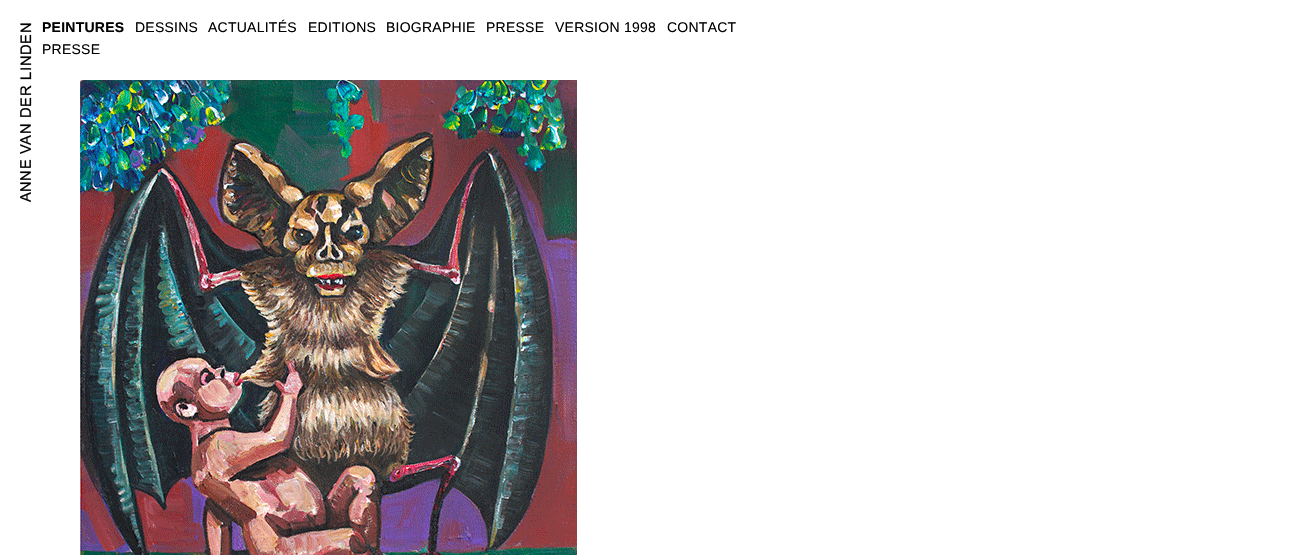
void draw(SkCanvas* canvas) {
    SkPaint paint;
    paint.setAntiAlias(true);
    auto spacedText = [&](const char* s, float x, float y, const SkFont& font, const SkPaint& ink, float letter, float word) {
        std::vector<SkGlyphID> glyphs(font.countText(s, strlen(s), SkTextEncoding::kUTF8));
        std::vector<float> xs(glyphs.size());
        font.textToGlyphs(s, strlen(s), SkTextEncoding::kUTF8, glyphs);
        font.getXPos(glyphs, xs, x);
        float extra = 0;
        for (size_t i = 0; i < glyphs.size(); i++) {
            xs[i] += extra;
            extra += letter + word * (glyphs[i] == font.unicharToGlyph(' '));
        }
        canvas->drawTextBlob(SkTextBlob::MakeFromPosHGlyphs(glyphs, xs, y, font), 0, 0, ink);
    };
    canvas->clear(0xFFFFFFFF);
    canvas->drawImageRect(SkImages::DeferredFromEncodedData(SkData::MakeFromFileName("img1.png")), SkRect::MakeXYWH(20, 23, 12, 180), SkSamplingOptions());
    SkFont font1(fontMgr->matchFamilyStyle("Liberation Sans", SkFontStyle::Bold()), 14);
    font1.setSubpixel(true);
    paint.setColor(0xFF000000);
    spacedText("PEINTURES", 42, 32, font1, paint, 0.25f, 0);
    SkFont font2(fontMgr->matchFamilyStyle("Liberation Sans", SkFontStyle::Normal()), 14);
    font2.setSubpixel(true);
    spacedText("PRESSE", 42, 54, font2, paint, 0.25f, 0);
    spacedText("DESSINS", 135, 32, font2, paint, 0.25f, 0);
    spacedText("ACTUALITÉS", 208, 32, font2, paint, 0.25f, 0);
    spacedText("EDITIONS", 308, 32, font2, paint, 0.25f, 0);
    spacedText("BIOGRAPHIE", 386, 32, font2, paint, 0.25f, 0);
    spacedText("PRESSE", 486, 32, font2, paint, 0.25f, 0);
    spacedText("VERSION 1998", 555, 32, font2, paint, 0.25f, 0);
    spacedText("CONTACT", 667, 32, font2, paint, 0.25f, 0);
    canvas->drawImageRect(SkImages::DeferredFromEncodedData(SkData::MakeFromFileName("img2.png")), SkRect::MakeXYWH(80, 80, 497, 475), SkSamplingOptions());
}
